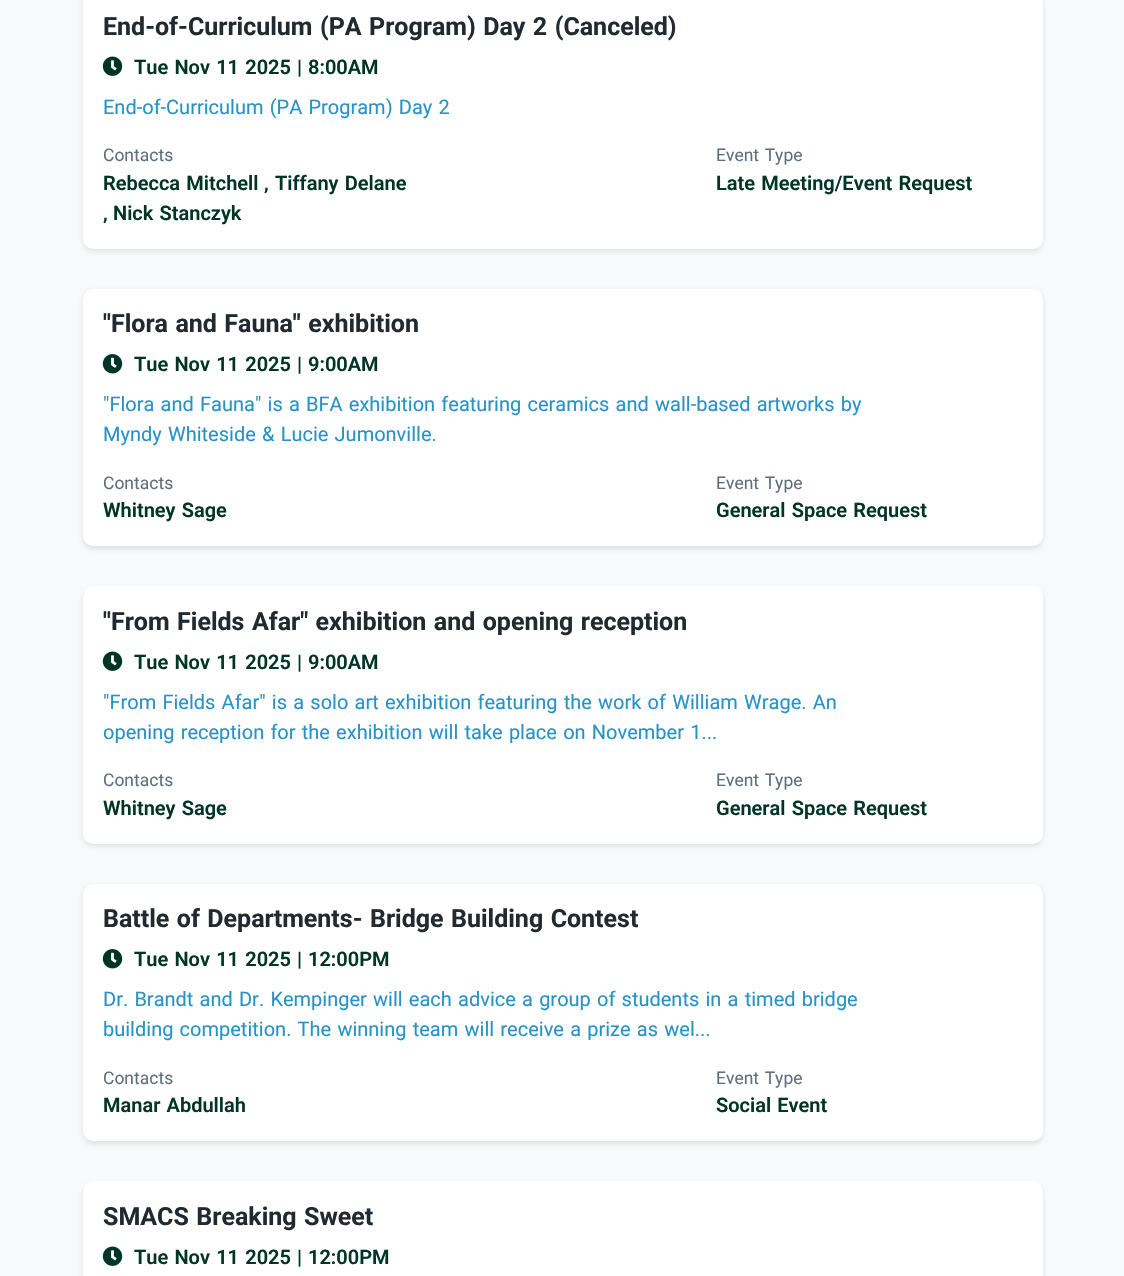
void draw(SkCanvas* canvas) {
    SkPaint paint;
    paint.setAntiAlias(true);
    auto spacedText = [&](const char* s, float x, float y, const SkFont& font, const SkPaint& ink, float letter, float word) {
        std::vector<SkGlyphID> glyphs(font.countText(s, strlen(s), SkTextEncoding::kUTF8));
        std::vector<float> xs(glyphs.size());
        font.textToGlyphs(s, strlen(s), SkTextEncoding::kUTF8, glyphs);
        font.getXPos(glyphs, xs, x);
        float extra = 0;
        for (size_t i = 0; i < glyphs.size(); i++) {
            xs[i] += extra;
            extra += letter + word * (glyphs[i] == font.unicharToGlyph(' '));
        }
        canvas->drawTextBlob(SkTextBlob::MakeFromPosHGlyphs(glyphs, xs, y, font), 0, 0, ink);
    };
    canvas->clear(0xFFF8FAFC);
    paint.setColor(0x1A000000);
    paint.setMaskFilter(SkMaskFilter::MakeBlur(kNormal_SkBlurStyle, 2.5f));
    canvas->drawRoundRect(SkRect::MakeXYWH(83, -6, 960, 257), 10, 10, paint);
    paint.setMaskFilter(nullptr);
    paint.setColor(0xFFFFFFFF);
    canvas->drawRoundRect(SkRect::MakeXYWH(83, -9, 960, 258), 10, 10, paint);
    SkFont font1(fontMgr->matchFamilyStyle("Roboto", SkFontStyle::Bold()), 25);
    font1.setSubpixel(true);
    paint.setColor(0xFF22292F);
    spacedText("End-of-Curriculum (PA Program) Day 2 (Canceled)", 103, 35, font1, paint, 0, 1.25f);
    canvas->drawImageRect(SkImages::DeferredFromEncodedData(SkData::MakeFromFileName("img1.png")), SkRect::MakeXYWH(102, 56, 21, 20), SkSamplingOptions());
    SkFont font2(fontMgr->matchFamilyStyle("Roboto", SkFontStyle(600, SkFontStyle::kNormal_Width, SkFontStyle::kUpright_Slant)), 20);
    font2.setSubpixel(true);
    paint.setColor(0xFF003525);
    spacedText("Tue Nov 11 2025", 134, 74, font2, paint, 0, 1.25f);
    canvas->drawString("|", 297, 74, font2, paint);
    canvas->drawString("8:00AM", 308, 74, font2, paint);
    SkFont font3(fontMgr->matchFamilyStyle("Roboto", SkFontStyle::Normal()), 20);
    font3.setSubpixel(true);
    paint.setColor(0xFF2692C6);
    spacedText("End-of-Curriculum (PA Program) Day 2", 103, 114, font3, paint, 0, 1.25f);
    SkFont font4(fontMgr->matchFamilyStyle("Roboto", SkFontStyle::Normal()), 17.5f);
    font4.setSubpixel(true);
    paint.setColor(0xFF606F7B);
    canvas->drawString("Contacts", 103, 161, font4, paint);
    paint.setColor(0xFF003525);
    spacedText("Rebecca Mitchell", 103, 190, font2, paint, 0, 1.25f);
    canvas->drawString(",", 264, 190, font2, paint);
    spacedText("Tiffany Delane", 275, 190, font2, paint, 0, 1.25f);
    canvas->drawString(",", 103, 220, font2, paint);
    spacedText("Nick Stanczyk", 113, 220, font2, paint, 0, 1.25f);
    paint.setColor(0xFF606F7B);
    spacedText("Event Type", 716, 161, font4, paint, 0, 1.25f);
    paint.setColor(0xFF003525);
    spacedText("Late Meeting/Event Request", 716, 190, font2, paint, 0, 1.25f);
    paint.setColor(0x1A000000);
    paint.setMaskFilter(SkMaskFilter::MakeBlur(kNormal_SkBlurStyle, 2.5f));
    canvas->drawRoundRect(SkRect::MakeXYWH(83, 291, 960, 258), 10, 10, paint);
    paint.setMaskFilter(nullptr);
    paint.setColor(0xFFFFFFFF);
    canvas->drawRoundRect(SkRect::MakeXYWH(83, 289, 960, 257), 10, 10, paint);
    paint.setColor(0xFF22292F);
    spacedText("\"Flora and Fauna\" exhibition", 103, 332, font1, paint, 0, 1.25f);
    canvas->drawImageRect(SkImages::DeferredFromEncodedData(SkData::MakeFromFileName("img2.png")), SkRect::MakeXYWH(102, 354, 21, 20), SkSamplingOptions());
    paint.setColor(0xFF003525);
    spacedText("Tue Nov 11 2025", 134, 371, font2, paint, 0, 1.25f);
    canvas->drawString("|", 297, 371, font2, paint);
    canvas->drawString("9:00AM", 308, 371, font2, paint);
    paint.setColor(0xFF2692C6);
    spacedText("\"Flora and Fauna\" is a BFA exhibition featuring ceramics and wall-based artworks by", 103, 411, font3, paint, 0, 1.25f);
    spacedText("Myndy Whiteside & Lucie Jumonville.", 103, 441, font3, paint, 0, 1.25f);
    paint.setColor(0xFF606F7B);
    canvas->drawString("Contacts", 103, 489, font4, paint);
    paint.setColor(0xFF003525);
    spacedText("Whitney Sage", 103, 517, font2, paint, 0, 1.25f);
    paint.setColor(0xFF606F7B);
    spacedText("Event Type", 716, 489, font4, paint, 0, 1.25f);
    paint.setColor(0xFF003525);
    spacedText("General Space Request", 716, 517, font2, paint, 0, 1.25f);
    paint.setColor(0x1A000000);
    paint.setMaskFilter(SkMaskFilter::MakeBlur(kNormal_SkBlurStyle, 2.5f));
    canvas->drawRoundRect(SkRect::MakeXYWH(83, 589, 960, 257), 10, 10, paint);
    paint.setMaskFilter(nullptr);
    paint.setColor(0xFFFFFFFF);
    canvas->drawRoundRect(SkRect::MakeXYWH(83, 586, 960, 258), 10, 10, paint);
    paint.setColor(0xFF22292F);
    spacedText("\"From Fields Afar\" exhibition and opening reception", 103, 630, font1, paint, 0, 1.25f);
    canvas->drawImageRect(SkImages::DeferredFromEncodedData(SkData::MakeFromFileName("img1.png")), SkRect::MakeXYWH(102, 651, 21, 20), SkSamplingOptions());
    paint.setColor(0xFF003525);
    spacedText("Tue Nov 11 2025", 134, 669, font2, paint, 0, 1.25f);
    canvas->drawString("|", 297, 669, font2, paint);
    canvas->drawString("9:00AM", 308, 669, font2, paint);
    paint.setColor(0xFF2692C6);
    spacedText("\"From Fields Afar\" is a solo art exhibition featuring the work of William Wrage. An", 103, 709, font3, paint, 0, 1.25f);
    spacedText("opening reception for the exhibition will take place on November 1...", 103, 739, font3, paint, 0, 1.25f);
    paint.setColor(0xFF606F7B);
    canvas->drawString("Contacts", 103, 786, font4, paint);
    paint.setColor(0xFF003525);
    spacedText("Whitney Sage", 103, 815, font2, paint, 0, 1.25f);
    paint.setColor(0xFF606F7B);
    spacedText("Event Type", 716, 786, font4, paint, 0, 1.25f);
    paint.setColor(0xFF003525);
    spacedText("General Space Request", 716, 815, font2, paint, 0, 1.25f);
    paint.setColor(0x1A000000);
    paint.setMaskFilter(SkMaskFilter::MakeBlur(kNormal_SkBlurStyle, 2.5f));
    canvas->drawRoundRect(SkRect::MakeXYWH(83, 886, 960, 258), 10, 10, paint);
    paint.setMaskFilter(nullptr);
    paint.setColor(0xFFFFFFFF);
    canvas->drawRoundRect(SkRect::MakeXYWH(83, 884, 960, 257), 10, 10, paint);
    paint.setColor(0xFF22292F);
    spacedText("Battle of Departments- Bridge Building Contest", 103, 927, font1, paint, 0, 1.25f);
    canvas->drawImageRect(SkImages::DeferredFromEncodedData(SkData::MakeFromFileName("img2.png")), SkRect::MakeXYWH(102, 949, 21, 20), SkSamplingOptions());
    paint.setColor(0xFF003525);
    spacedText("Tue Nov 11 2025", 134, 966, font2, paint, 0, 1.25f);
    canvas->drawString("|", 297, 966, font2, paint);
    canvas->drawString("12:00PM", 308, 966, font2, paint);
    paint.setColor(0xFF2692C6);
    spacedText("Dr. Brandt and Dr. Kempinger will each advice a group of students in a timed bridge", 103, 1006, font3, paint, 0, 1.25f);
    spacedText("building competition. The winning team will receive a prize as wel...", 103, 1036, font3, paint, 0, 1.25f);
    paint.setColor(0xFF606F7B);
    canvas->drawString("Contacts", 103, 1084, font4, paint);
    paint.setColor(0xFF003525);
    spacedText("Manar Abdullah", 103, 1112, font2, paint, 0, 1.25f);
    paint.setColor(0xFF606F7B);
    spacedText("Event Type", 716, 1084, font4, paint, 0, 1.25f);
    paint.setColor(0xFF003525);
    spacedText("Social Event", 716, 1112, font2, paint, 0, 1.25f);
    paint.setColor(0x1A000000);
    paint.setMaskFilter(SkMaskFilter::MakeBlur(kNormal_SkBlurStyle, 2.5f));
    canvas->drawRoundRect(SkRect::MakeXYWH(83, 1184, 960, 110), 10, 10, paint);
    paint.setMaskFilter(nullptr);
    paint.setColor(0xFFFFFFFF);
    canvas->drawRoundRect(SkRect::MakeXYWH(83, 1181, 960, 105), 10, 10, paint);
    paint.setColor(0xFF22292F);
    spacedText("SMACS Breaking Sweet", 103, 1225, font1, paint, 0, 1.25f);
    canvas->drawImageRect(SkImages::DeferredFromEncodedData(SkData::MakeFromFileName("img1.png")), SkRect::MakeXYWH(102, 1246, 21, 20), SkSamplingOptions());
    paint.setColor(0xFF003525);
    spacedText("Tue Nov 11 2025", 134, 1264, font2, paint, 0, 1.25f);
    canvas->drawString("|", 297, 1264, font2, paint);
    canvas->drawString("12:00PM", 308, 1264, font2, paint);
}
